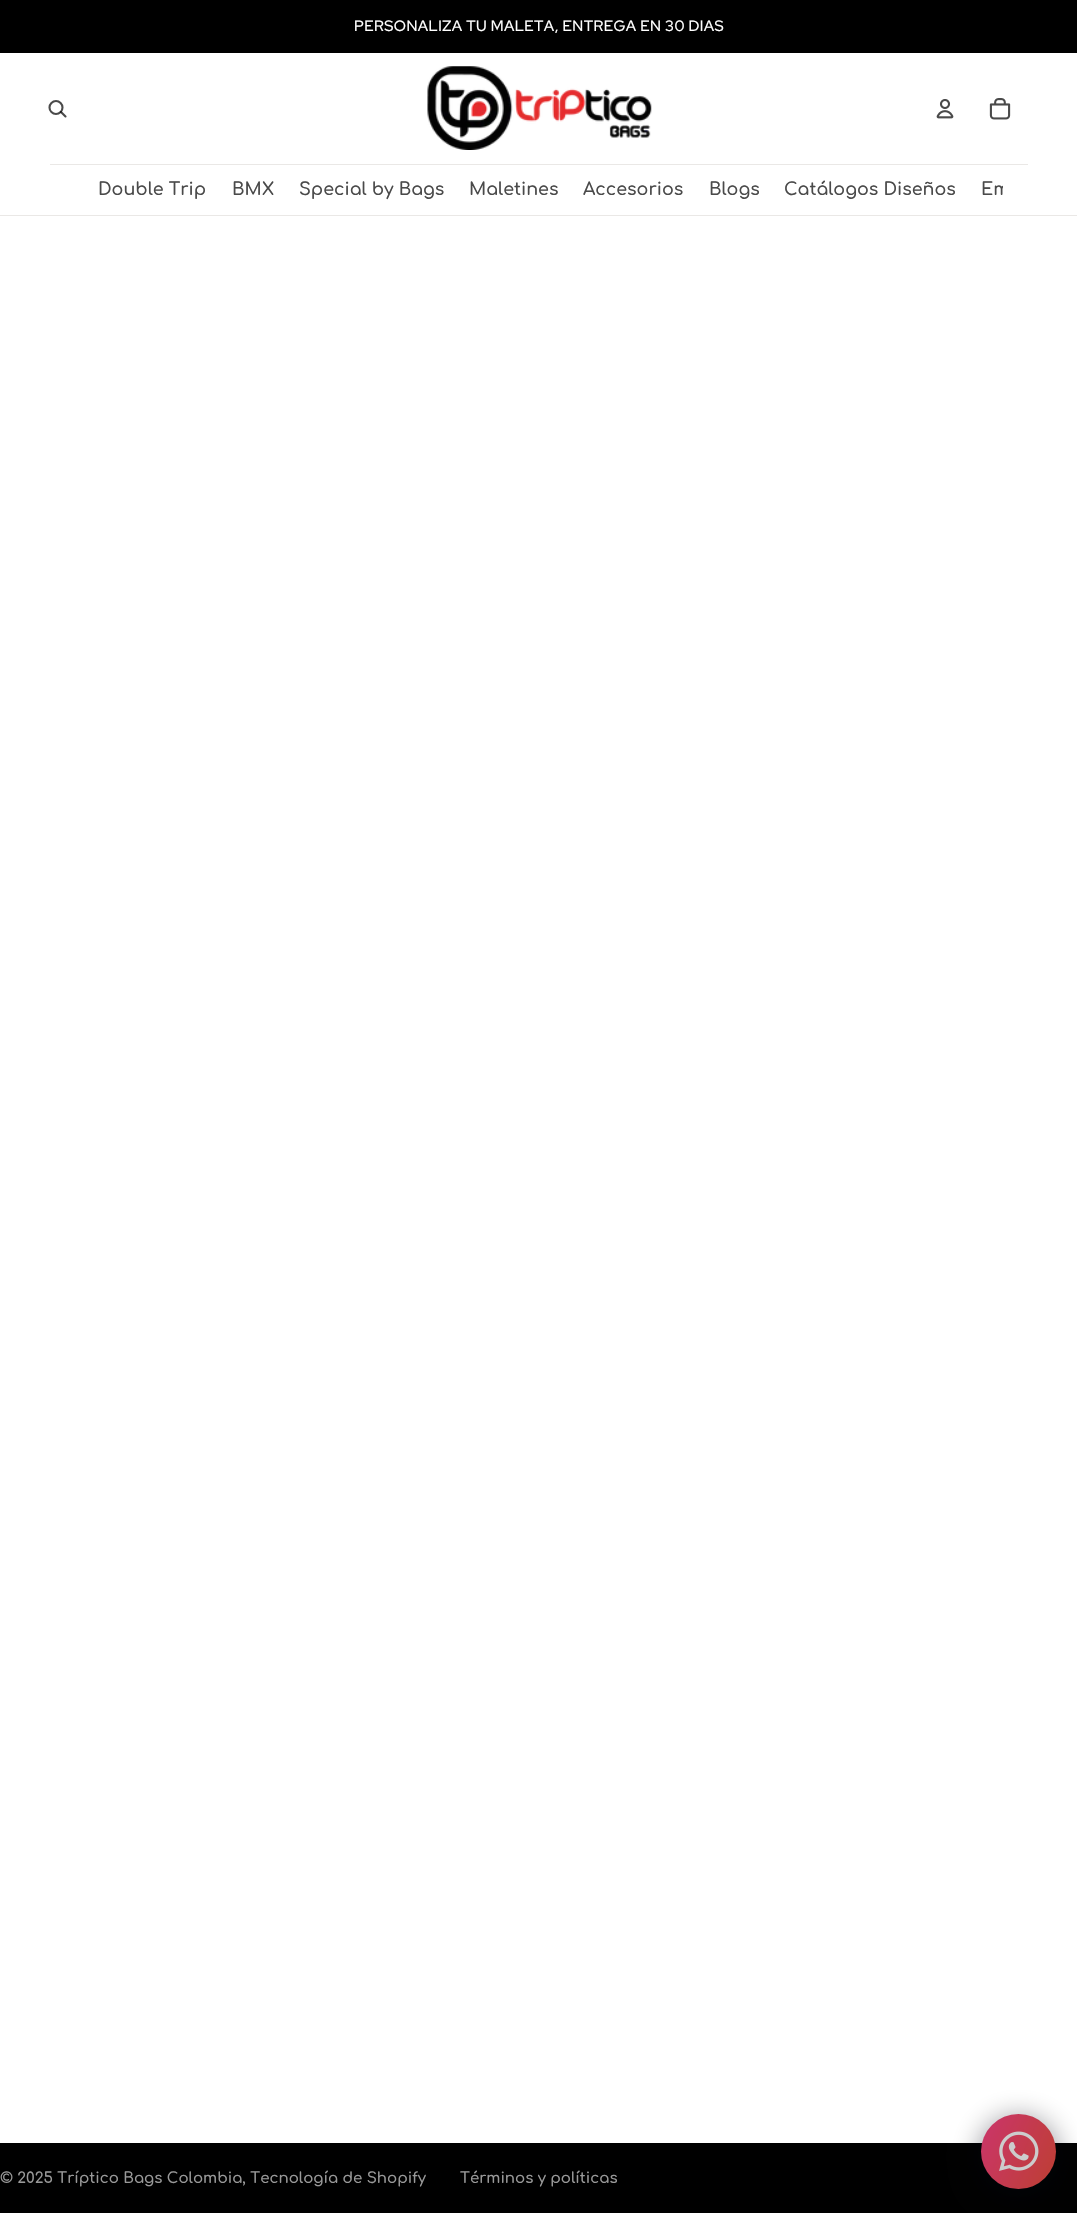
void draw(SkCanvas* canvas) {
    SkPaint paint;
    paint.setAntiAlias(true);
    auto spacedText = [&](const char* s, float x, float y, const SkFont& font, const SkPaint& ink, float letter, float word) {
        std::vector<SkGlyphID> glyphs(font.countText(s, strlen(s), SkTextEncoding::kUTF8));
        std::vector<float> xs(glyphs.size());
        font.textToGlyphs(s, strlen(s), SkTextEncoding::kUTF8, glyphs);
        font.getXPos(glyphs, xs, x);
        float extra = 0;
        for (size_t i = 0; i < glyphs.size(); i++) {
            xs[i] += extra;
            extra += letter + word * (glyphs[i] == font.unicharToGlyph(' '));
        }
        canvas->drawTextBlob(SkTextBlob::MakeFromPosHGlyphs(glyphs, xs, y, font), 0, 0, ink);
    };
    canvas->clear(0xFFFFFFFF);
    paint.setColor(0xFF000000);
    canvas->drawRect(SkRect::MakeXYWH(0, 0, 1077, 53), paint);
    canvas->save();
    canvas->clipRect(SkRect::MakeXYWH(114, 19, 850, 15));
    SkFont font1(fontMgr->matchFamilyStyle("Red Hat Display", SkFontStyle(500, SkFontStyle::kNormal_Width, SkFontStyle::kUpright_Slant)), 15);
    font1.setSubpixel(true);
    paint.setColor(0xFFFFFFFF);
    spacedText("PERSONALIZA TU MALETA, ENTREGA EN 30 DÍAS", 354, 31, font1, paint, 0.45f, 0);
    canvas->restore();
    paint.setColor(0xFFEAE8E6);
    canvas->drawRect(SkRect::MakeXYWH(50, 164, 978, 1), paint);
    paint.setStyle(SkPaint::kStroke_Style);
    paint.setStrokeWidth(2.1f);
    paint.setColor(0xFF4A4A4A);
    canvas->drawCircle(56, 107.5f, 6.5f, paint);
    paint.setStrokeCap(SkPaint::kRound_Cap);
    paint.setStrokeJoin(SkPaint::kRound_Join);
    paint.setColor(0xB5000000);
    canvas->drawPath(SkPathBuilder().moveTo(61, 112).lineTo(65.5f, 116.5f).detach(), paint);
    canvas->drawImageRect(SkImages::DeferredFromEncodedData(SkData::MakeFromFileName("img1.png")), SkRect::MakeXYWH(427, 66, 225, 84), SkSamplingOptions());
    canvas->drawImageRect(SkImages::DeferredFromEncodedData(SkData::MakeFromFileName("img2.png")), SkRect::MakeXYWH(936, 99, 18, 20), SkSamplingOptions());
    canvas->drawImageRect(SkImages::DeferredFromEncodedData(SkData::MakeFromFileName("img3.png")), SkRect::MakeXYWH(989, 98, 22, 22), SkSamplingOptions());
    paint.setStyle(SkPaint::kFill_Style);
    paint.setColor(0xFFEAE8E6);
    canvas->drawRect(SkRect::MakeXYWH(0, 215, 1077, 1), paint);
    SkFont font2(fontMgr->matchFamilyStyle("Comfortaa", SkFontStyle(600, SkFontStyle::kNormal_Width, SkFontStyle::kUpright_Slant)), 17.5f);
    font2.setSubpixel(true);
    paint.setColor(0xFF4A4A4A);
    canvas->drawString("Double Trip", 98, 195, font2, paint);
    canvas->drawString("BMX", 232, 195, font2, paint);
    canvas->drawString("Special by Bags", 299, 195, font2, paint);
    canvas->drawString("Maletines", 469, 195, font2, paint);
    canvas->drawString("Accesorios", 583, 195, font2, paint);
    canvas->drawString("Blogs", 709, 195, font2, paint);
    canvas->drawString("Catálogos Diseños", 784, 195, font2, paint);
    canvas->save();
    canvas->clipRect(SkRect::MakeXYWH(75, 175, 928, 30));
    canvas->drawString("Em", 981, 195, font2, paint);
    canvas->restore();
    paint.setColor(0xFF000000);
    canvas->drawRect(SkRect::MakeXYWH(0, 2143, 1077, 70), paint);
    SkFont font3(fontMgr->matchFamilyStyle("Comfortaa", SkFontStyle(600, SkFontStyle::kNormal_Width, SkFontStyle::kUpright_Slant)), 15);
    font3.setSubpixel(true);
    paint.setColor(0xFF999999);
    canvas->drawString("© 2025 Tríptico Bags Colombia, Tecnología de Shopify", 0, 2183, font3, paint);
    canvas->drawString("Términos y políticas", 460, 2183, font3, paint);
    paint.setColor(0x80020610);
    paint.setMaskFilter(SkMaskFilter::MakeBlur(kNormal_SkBlurStyle, 15));
    canvas->drawRoundRect(SkRect::MakeXYWH(981, 2119, 75, 75), 37.5f, 37.5f, paint);
    paint.setMaskFilter(nullptr);
    {
        const SkColor colors[] = {0xFFCB356B, 0xFFBD3F32};
        const float stops[] = {0, 1};
        const SkPoint ends[] = {{974, 2130}, {1064, 2172}};
        paint.setShader(SkGradientShader::MakeLinear(ends, colors, stops, 2, SkTileMode::kClamp));
        paint.setAlpha(255);
    }
    canvas->drawCircle(1018.5f, 2151.5f, 37.5f, paint);
    canvas->drawImageRect(SkImages::DeferredFromEncodedData(SkData::MakeFromFileName("img4.png")), SkRect::MakeXYWH(999, 2131, 40, 40), SkSamplingOptions());
}
